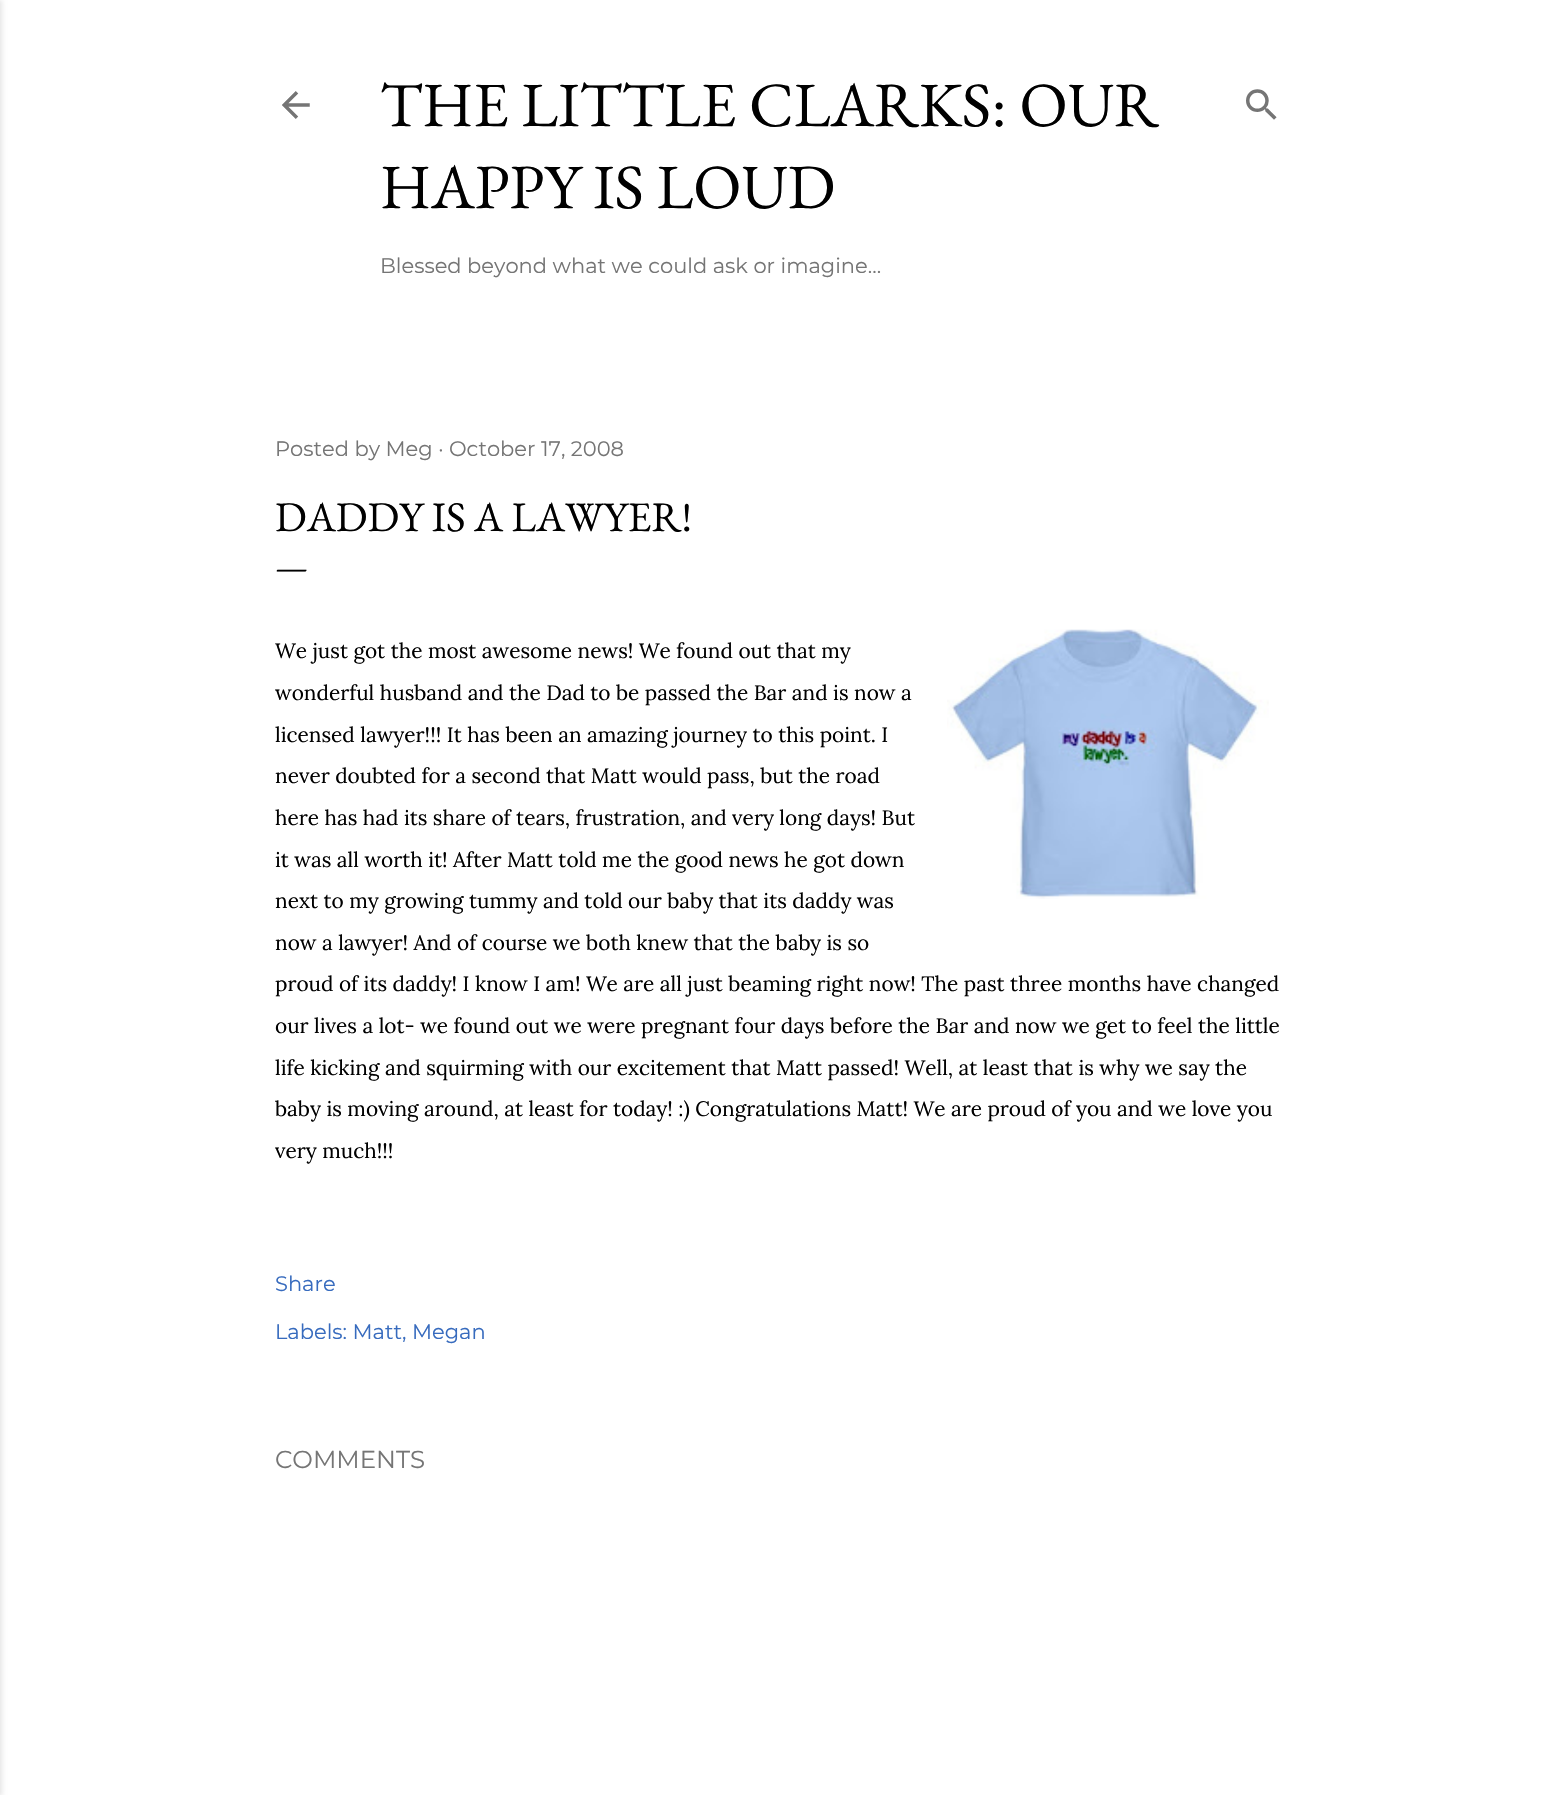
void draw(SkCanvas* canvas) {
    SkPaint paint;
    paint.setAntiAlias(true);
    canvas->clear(0xFFFFFFFF);
    paint.setColor(0x1A000000);
    paint.setMaskFilter(SkMaskFilter::MakeBlur(kNormal_SkBlurStyle, 2.5f));
    canvas->drawRect(SkRect::MakeXYWH(-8, 0, 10, 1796), paint);
    paint.setMaskFilter(nullptr);
    canvas->drawImageRect(SkImages::DeferredFromEncodedData(SkData::MakeFromFileName("img1.png")), SkRect::MakeXYWH(282, 91, 28, 28), SkSamplingOptions());
    SkFont font1(fontMgr->matchFamilyStyle("EB Garamond", SkFontStyle::Normal()), 63);
    font1.setSubpixel(true);
    paint.setColor(0xFF000000);
    canvas->drawString("THE LITTLE CLARKS: OUR", 380, 126, font1, paint);
    canvas->drawString("HAPPY IS LOUD", 380, 208, font1, paint);
    SkFont font2(fontMgr->matchFamilyStyle("Montserrat", SkFontStyle::Normal()), 21);
    font2.setSubpixel(true);
    paint.setColor(0xFF757575);
    canvas->drawString("Blessed beyond what we could ask or imagine...", 380, 273, font2, paint);
    canvas->drawImageRect(SkImages::DeferredFromEncodedData(SkData::MakeFromFileName("img2.png")), SkRect::MakeXYWH(1246, 89, 31, 31), SkSamplingOptions());
    canvas->drawString("Posted by Meg · October 17, 2008", 275, 456, font2, paint);
    SkFont font3(fontMgr->matchFamilyStyle("EB Garamond", SkFontStyle::Normal()), 42);
    font3.setSubpixel(true);
    paint.setColor(0xFF000000);
    canvas->drawString("DADDY IS A LAWYER!", 275, 531, font3, paint);
    SkFont font4(fontMgr->matchFamilyStyle("EB Garamond", SkFontStyle::Normal()), 35);
    font4.setSubpixel(true);
    canvas->drawString("—", 275, 578, font4, paint);
    canvas->drawImageRect(SkImages::DeferredFromEncodedData(SkData::MakeFromFileName("img3.png")), SkRect::MakeXYWH(947, 629, 322, 270), SkSamplingOptions());
    SkFont font5(fontMgr->matchFamilyStyle("Lora", SkFontStyle::Normal()), 20.8f);
    font5.setSubpixel(true);
    canvas->drawString("We just got the most awesome news! We found out that my", 275, 658, font5, paint);
    canvas->drawString("wonderful husband and the Dad to be passed the Bar and is now a", 275, 700, font5, paint);
    canvas->drawString("licensed lawyer!!! It has been an amazing journey to this point. I", 275, 742, font5, paint);
    canvas->drawString("never doubted for a second that Matt would pass, but the road", 275, 783, font5, paint);
    canvas->drawString("here has had its share of tears, frustration, and very long days! But", 275, 825, font5, paint);
    canvas->drawString("it was all worth it! After Matt told me the good news he got down", 275, 867, font5, paint);
    canvas->drawString("next to my growing tummy and told our baby that its daddy was", 275, 908, font5, paint);
    canvas->drawString("now a lawyer! And of course we both knew that the bab", 275, 950, font5, paint);
    canvas->drawString("y is so", 810, 950, font5, paint);
    canvas->drawString("proud of its daddy! I know I am! We are all just beaming right now! The past three months have changed", 275, 991, font5, paint);
    canvas->drawString("our lives a lot- we found out we were pregnant four days before the Bar and now we get to feel the little", 275, 1033, font5, paint);
    canvas->drawString("life kicking and squirming with our excitement that Matt passed! Well, at least that is why we say the", 275, 1075, font5, paint);
    canvas->drawString("baby is moving around, at least for today! :) Congratulations Matt! We are proud of you and we love you", 275, 1116, font5, paint);
    canvas->drawString("very much!!!", 275, 1158, font5, paint);
    paint.setColor(0xFF376BBE);
    canvas->drawString("Share", 275, 1291, font2, paint);
    canvas->drawString("Labels: Matt, Megan", 275, 1339, font2, paint);
    SkFont font6(fontMgr->matchFamilyStyle("Montserrat", SkFontStyle::Normal()), 24.5f);
    font6.setSubpixel(true);
    paint.setColor(0xFF757575);
    canvas->drawString("COMMENTS", 275, 1468, font6, paint);
}
